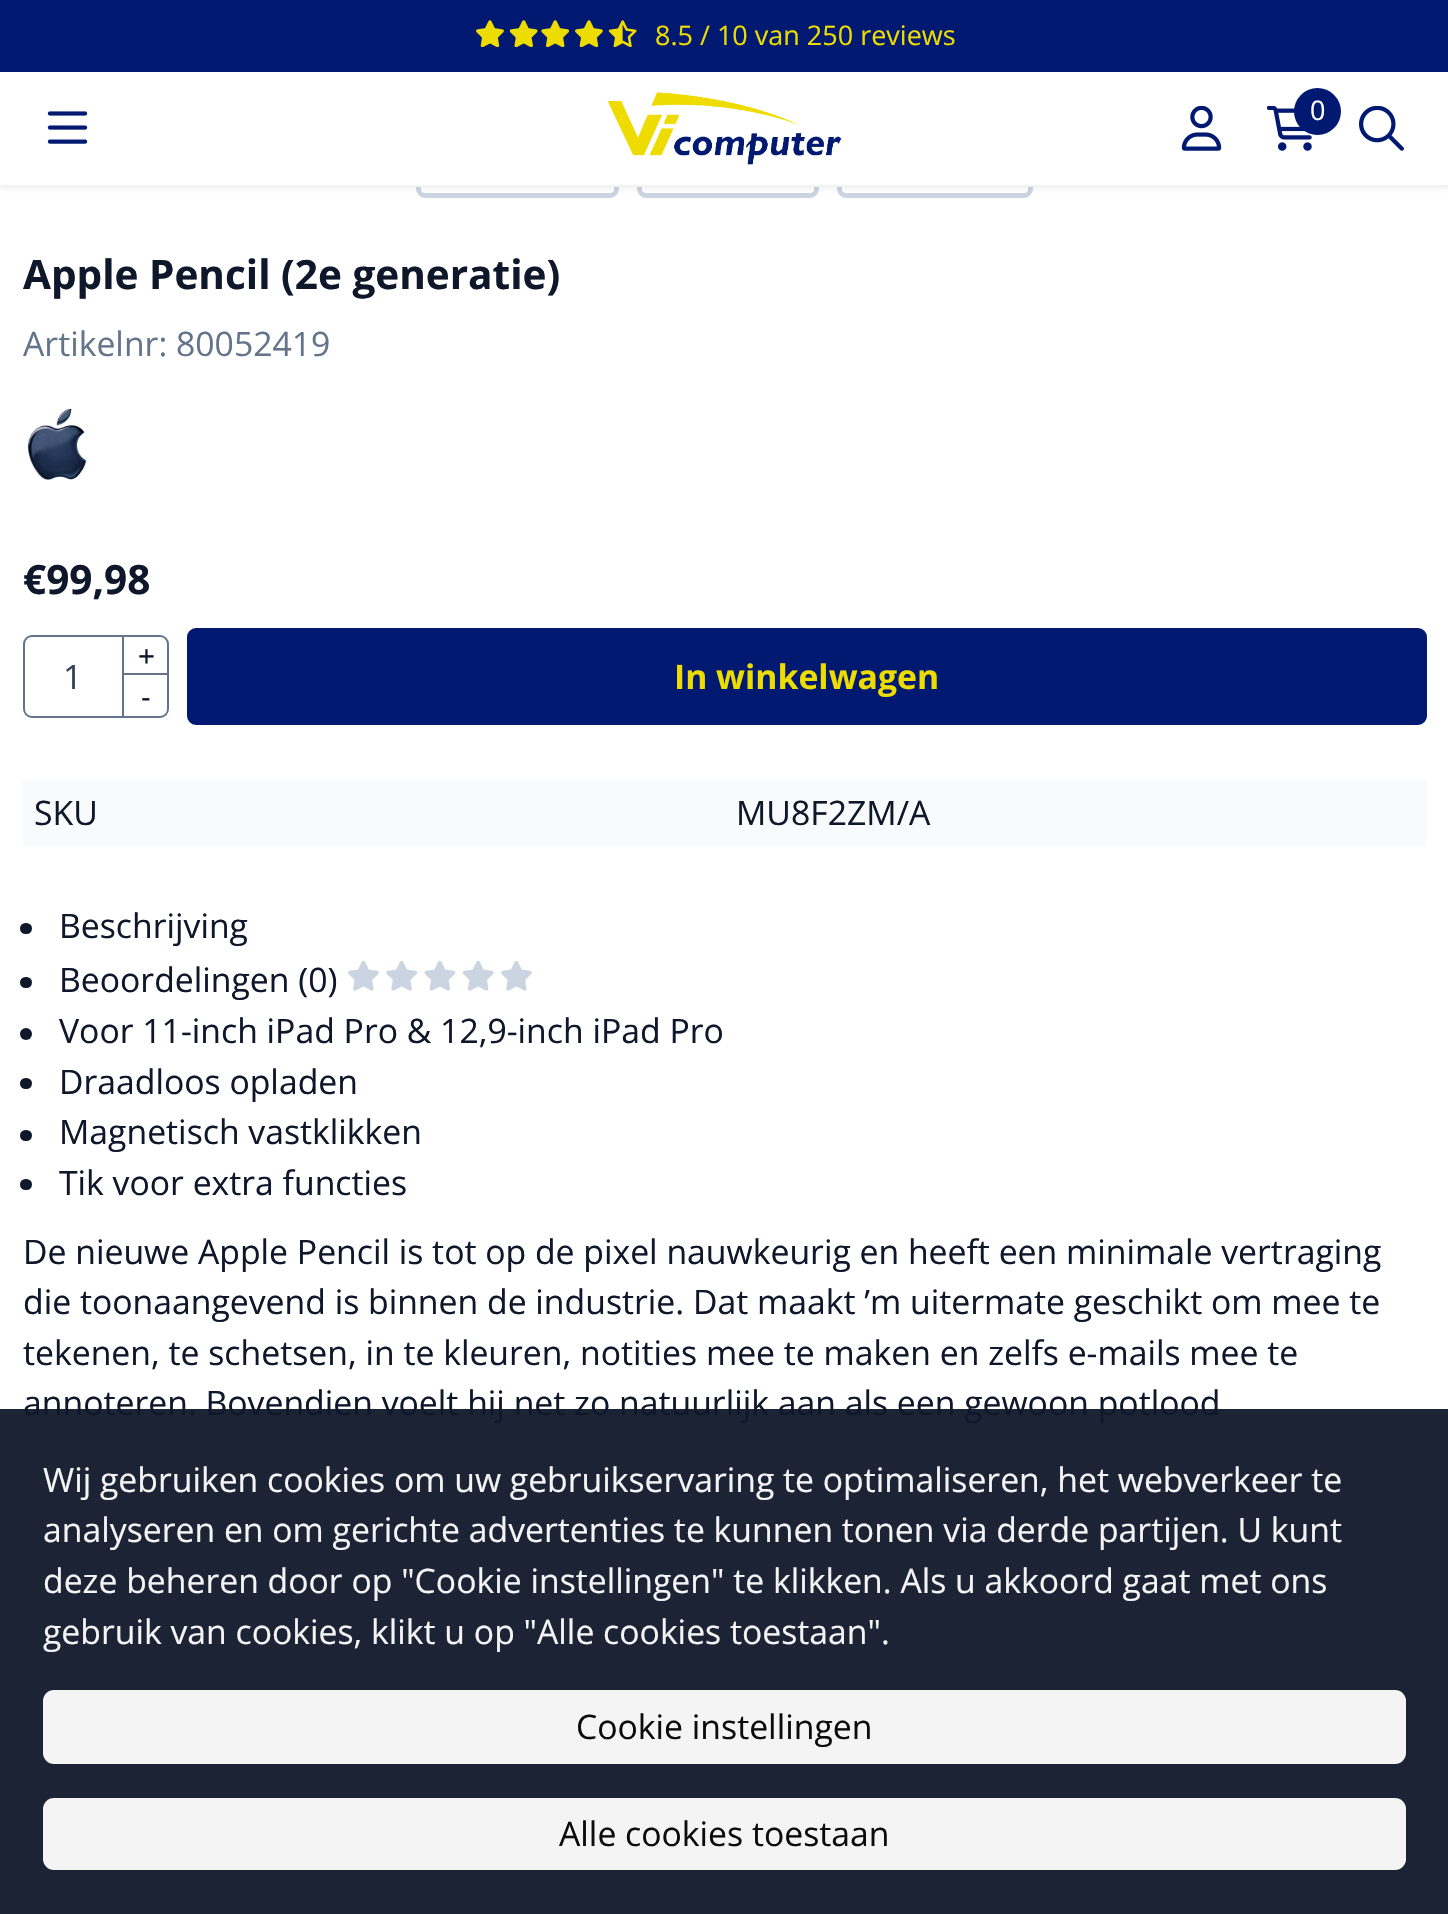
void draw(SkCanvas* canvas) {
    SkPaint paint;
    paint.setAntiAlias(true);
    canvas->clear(0xFFFFFFFF);
    paint.setColor(0xFF021971);
    canvas->drawRect(SkRect::MakeXYWH(0, 0, 1448, 72), paint);
    canvas->drawImageRect(SkImages::DeferredFromEncodedData(SkData::MakeFromFileName("img1.png")), SkRect::MakeXYWH(476, 20, 28, 27), SkSamplingOptions());
    canvas->drawImageRect(SkImages::DeferredFromEncodedData(SkData::MakeFromFileName("img2.png")), SkRect::MakeXYWH(509, 20, 29, 27), SkSamplingOptions());
    canvas->drawImageRect(SkImages::DeferredFromEncodedData(SkData::MakeFromFileName("img3.png")), SkRect::MakeXYWH(541, 20, 29, 27), SkSamplingOptions());
    canvas->drawImageRect(SkImages::DeferredFromEncodedData(SkData::MakeFromFileName("img1.png")), SkRect::MakeXYWH(575, 20, 28, 27), SkSamplingOptions());
    canvas->drawImageRect(SkImages::DeferredFromEncodedData(SkData::MakeFromFileName("img4.png")), SkRect::MakeXYWH(608, 20, 29, 27), SkSamplingOptions());
    SkFont font1(fontMgr->matchFamilyStyle("Open Sans", SkFontStyle::Normal()), 27);
    font1.setSubpixel(true);
    paint.setColor(0xFFEDDC00);
    canvas->drawString("8.5 / 10 van 250 reviews", 655, 45, font1, paint);
    paint.setStyle(SkPaint::kStroke_Style);
    paint.setStrokeWidth(5);
    paint.setColor(0xFFCBD5E1);
    canvas->drawRoundRect(SkRect::MakeXYWH(418.5f, 108.5f, 198, 87), 6.5f, 6.5f, paint);
    canvas->drawRoundRect(SkRect::MakeXYWH(639.5f, 108.5f, 177, 87), 6.5f, 6.5f, paint);
    canvas->drawRoundRect(SkRect::MakeXYWH(839.5f, 108.5f, 191, 87), 6.5f, 6.5f, paint);
    paint.setStyle(SkPaint::kFill_Style);
    paint.setColor(0x0D000000);
    paint.setMaskFilter(SkMaskFilter::MakeBlur(kNormal_SkBlurStyle, 2));
    canvas->drawRect(SkRect::MakeXYWH(0, 74, 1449, 115), paint);
    paint.setMaskFilter(nullptr);
    paint.setColor(0xFFFFFFFF);
    canvas->drawRect(SkRect::MakeXYWH(0, 72, 1448, 113), paint);
    paint.setColor(0xFFF2F2F2);
    canvas->drawRect(SkRect::MakeXYWH(0, 185, 1448, 2), paint);
    canvas->drawImageRect(SkImages::DeferredFromEncodedData(SkData::MakeFromFileName("img5.png")), SkRect::MakeXYWH(47, 111, 41, 33), SkSamplingOptions());
    canvas->drawImageRect(SkImages::DeferredFromEncodedData(SkData::MakeFromFileName("img6.png")), SkRect::MakeXYWH(607, 92, 235, 73), SkSamplingOptions());
    canvas->drawImageRect(SkImages::DeferredFromEncodedData(SkData::MakeFromFileName("img7.png")), SkRect::MakeXYWH(1181, 106, 41, 45), SkSamplingOptions());
    canvas->drawImageRect(SkImages::DeferredFromEncodedData(SkData::MakeFromFileName("img8.png")), SkRect::MakeXYWH(1267, 106, 45, 45), SkSamplingOptions());
    paint.setColor(0xFF021971);
    canvas->drawCircle(1317.5f, 111.5f, 23.5f, paint);
    paint.setColor(0xFFFFFFFF);
    canvas->drawString("0", 1310, 120, font1, paint);
    canvas->drawImageRect(SkImages::DeferredFromEncodedData(SkData::MakeFromFileName("img9.png")), SkRect::MakeXYWH(1359, 106, 45, 45), SkSamplingOptions());
    SkFont font2(fontMgr->matchFamilyStyle("Open Sans", SkFontStyle::Bold()), 40.5f);
    font2.setSubpixel(true);
    paint.setColor(0xFF0F172A);
    canvas->drawString("Apple Pencil (2e generatie)", 23, 289, font2, paint);
    SkFont font3(fontMgr->matchFamilyStyle("Open Sans", SkFontStyle::Normal()), 33.75f);
    font3.setSubpixel(true);
    paint.setColor(0xFF64748B);
    canvas->drawString("Artikelnr: 80052419", 23, 356, font3, paint);
    canvas->drawImageRect(SkImages::DeferredFromEncodedData(SkData::MakeFromFileName("img10.png")), SkRect::MakeXYWH(27, 408, 60, 72), SkSamplingOptions());
    paint.setColor(0xFF0F172A);
    canvas->drawString("€99,98", 23, 594, font2, paint);
    paint.setStyle(SkPaint::kStroke_Style);
    paint.setStrokeWidth(2);
    paint.setColor(0xFF64748B);
    canvas->drawRoundRect(SkRect::MakeXYWH(24, 636, 144, 81), 8, 8, paint);
    paint.setStyle(SkPaint::kFill_Style);
    paint.setColor(0xFF334155);
    canvas->drawString("1", 63, 689, font3, paint);
    paint.setColor(0xFF64748B);
    canvas->drawRect(SkRect::MakeXYWH(122, 673, 47, 2), paint);
    canvas->drawRect(SkRect::MakeXYWH(122, 635, 2, 81), paint);
    SkFont font4(fontMgr->matchFamilyStyle("Liberation Sans", SkFontStyle::Normal()), 29);
    font4.setSubpixel(true);
    paint.setColor(0xFF0F172A);
    canvas->drawString("+", 138, 666, font4, paint);
    canvas->drawString("-", 141, 707, font4, paint);
    paint.setColor(0xFF021971);
    canvas->drawRoundRect(SkRect::MakeXYWH(189.5f, 630.5f, 1235, 92), 6.5f, 6.5f, paint);
    paint.setStyle(SkPaint::kStroke_Style);
    paint.setStrokeWidth(5);
    canvas->drawRoundRect(SkRect::MakeXYWH(189.5f, 630.5f, 1235, 92), 6.5f, 6.5f, paint);
    SkFont font5(fontMgr->matchFamilyStyle("Open Sans", SkFontStyle::Bold()), 33.75f);
    font5.setSubpixel(true);
    paint.setStyle(SkPaint::kFill_Style);
    paint.setColor(0xFFEDDC00);
    canvas->drawString("In winkelwagen", 674, 689, font5, paint);
    paint.setColor(0xFFF8FAFC);
    canvas->drawRect(SkRect::MakeXYWH(23, 779, 1404, 67), paint);
    paint.setColor(0xFF0F172A);
    canvas->drawString("SKU", 34, 825, font3, paint);
    canvas->drawString("MU8F2ZM/A", 736, 825, font3, paint);
    canvas->drawRoundRect(SkRect::MakeXYWH(20, 923, 12, 11), 5.5f, 5.5f, paint);
    canvas->drawString("Beschrijving", 59, 938, font3, paint);
    canvas->drawRoundRect(SkRect::MakeXYWH(20, 977, 12, 11), 5.5f, 5.5f, paint);
    canvas->drawString("Beoordelingen (0)", 59, 992, font3, paint);
    canvas->drawImageRect(SkImages::DeferredFromEncodedData(SkData::MakeFromFileName("img11.png")), SkRect::MakeXYWH(348, 961, 31, 30), SkSamplingOptions());
    canvas->drawImageRect(SkImages::DeferredFromEncodedData(SkData::MakeFromFileName("img12.png")), SkRect::MakeXYWH(386, 961, 31, 30), SkSamplingOptions());
    canvas->drawImageRect(SkImages::DeferredFromEncodedData(SkData::MakeFromFileName("img13.png")), SkRect::MakeXYWH(424, 961, 32, 30), SkSamplingOptions());
    canvas->drawImageRect(SkImages::DeferredFromEncodedData(SkData::MakeFromFileName("img14.png")), SkRect::MakeXYWH(462, 961, 32, 30), SkSamplingOptions());
    canvas->drawImageRect(SkImages::DeferredFromEncodedData(SkData::MakeFromFileName("img11.png")), SkRect::MakeXYWH(501, 961, 31, 30), SkSamplingOptions());
    canvas->drawCircle(26, 1034, 6, paint);
    canvas->drawString("Voor 11-inch iPad Pro & 12,9-inch iPad Pro", 59, 1043, font3, paint);
    canvas->drawRoundRect(SkRect::MakeXYWH(20, 1078, 12, 11), 5.5f, 5.5f, paint);
    canvas->drawString("Draadloos opladen", 59, 1094, font3, paint);
    canvas->drawRoundRect(SkRect::MakeXYWH(20, 1130, 12, 11), 5.5f, 5.5f, paint);
    canvas->drawString("Magnetisch vastklikken", 59, 1144, font3, paint);
    canvas->drawRoundRect(SkRect::MakeXYWH(20, 1179, 12, 11), 5.5f, 5.5f, paint);
    canvas->drawString("Tik voor extra functies", 59, 1195, font3, paint);
    canvas->drawString("De nieuwe Apple Pencil is tot op de pixel nauwkeurig en heeft een minimale vertraging", 23, 1264, font3, paint);
    canvas->drawString("die toonaangevend is binnen de industrie. Dat maakt ’m uitermate geschikt om mee te", 23, 1314, font3, paint);
    canvas->drawString("tekenen, te schetsen, in te kleuren, notities mee te maken en zelfs e-mails mee te", 23, 1365, font3, paint);
    canvas->drawString("annoteren. Bovendien voelt hij net zo natuurlijk aan als een gewoon potlood", 23, 1415, font3, paint);
    canvas->drawImageRect(SkImages::DeferredFromEncodedData(SkData::MakeFromFileName("img15.png")), SkRect::MakeXYWH(1354, 1825, 30, 16), SkSamplingOptions());
    paint.setColor(0xF20F172A);
    canvas->drawRect(SkRect::MakeXYWH(0, 1409, 1448, 505), paint);
    paint.setColor(0xFFF4F4F5);
    canvas->drawString("Wij gebruiken cookies om uw gebruikservaring te optimaliseren, het webverkeer te", 43, 1492, font3, paint);
    canvas->drawString("analyseren en om gerichte advertenties te kunnen tonen via derde partijen. U kunt", 43, 1542, font3, paint);
    canvas->drawString("deze beheren door op \"Cookie instellingen\" te klikken. Als u akkoord gaat met ons", 43, 1593, font3, paint);
    canvas->drawString("gebruik van cookies, klikt u op \"Alle cookies toestaan\".", 43, 1644, font3, paint);
    paint.setColor(0xF2FFFFFF);
    canvas->drawRoundRect(SkRect::MakeXYWH(43, 1690, 1363, 74), 11, 11, paint);
    paint.setColor(0xFF0C0C0C);
    canvas->drawString("Cookie instellingen", 576, 1739, font3, paint);
    paint.setColor(0xF2FFFFFF);
    canvas->drawRoundRect(SkRect::MakeXYWH(43, 1798, 1363, 72), 11, 11, paint);
    paint.setColor(0xFF0C0C0C);
    canvas->drawString("Alle cookies toestaan", 559, 1846, font3, paint);
}
